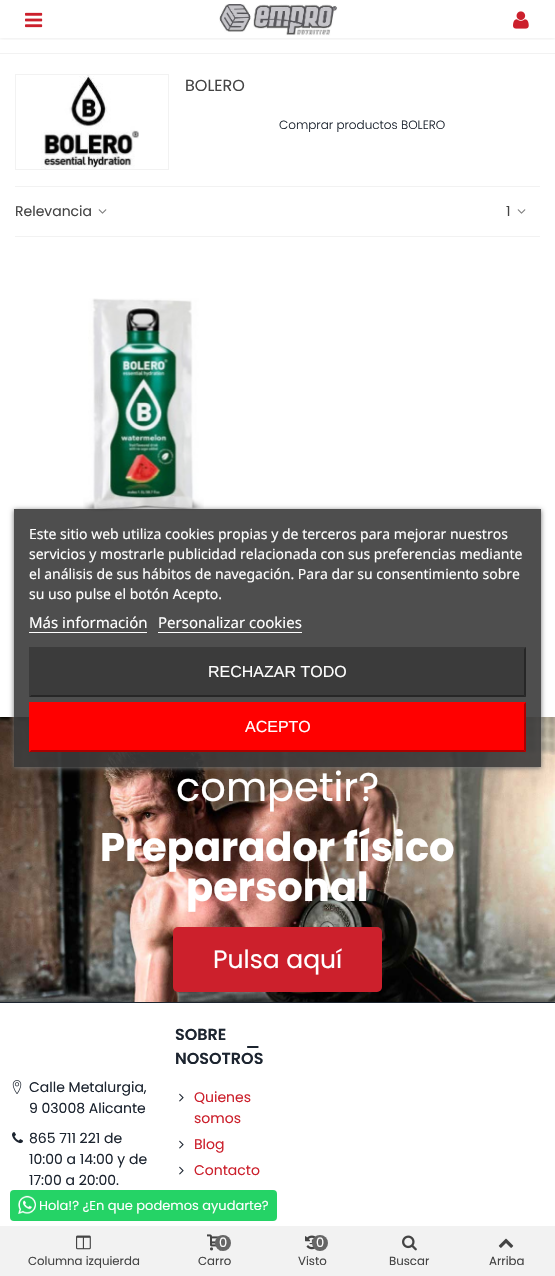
void draw(SkCanvas* canvas) {
    SkPaint paint;
    paint.setAntiAlias(true);
    canvas->clear(0xFFFFFFFF);
    canvas->save();
    canvas->clipRect(SkRect::MakeXYWH(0, 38, 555, 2));
    paint.setColor(0x1A000000);
    paint.setMaskFilter(SkMaskFilter::MakeBlur(kNormal_SkBlurStyle, 2));
    canvas->drawRect(SkRect::MakeXYWH(0, 0, 555, 38), paint);
    paint.setMaskFilter(nullptr);
    canvas->restore();
    canvas->drawImageRect(SkImages::DeferredFromEncodedData(SkData::MakeFromFileName("img1.png")), SkRect::MakeXYWH(25, 12, 18, 16), SkSamplingOptions());
    canvas->drawImageRect(SkImages::DeferredFromEncodedData(SkData::MakeFromFileName("img2.png")), SkRect::MakeXYWH(219, 4, 119, 33), SkSamplingOptions());
    canvas->drawImageRect(SkImages::DeferredFromEncodedData(SkData::MakeFromFileName("img3.png")), SkRect::MakeXYWH(513, 11, 16, 18), SkSamplingOptions());
    paint.setColor(0xFFF2F2F2);
    canvas->drawRect(SkRect::MakeXYWH(0, 53, 555, 1), paint);
    paint.setStyle(SkPaint::kStroke_Style);
    paint.setStrokeWidth(1);
    canvas->drawRect(SkRect::MakeXYWH(15.5f, 74.5f, 153, 95), paint);
    canvas->drawImageRect(SkImages::DeferredFromEncodedData(SkData::MakeFromFileName("img4.png")), SkRect::MakeXYWH(41, 75, 98, 94), SkSamplingOptions());
    SkFont font1(fontMgr->matchFamilyStyle("Poppins", SkFontStyle::Normal()), 16);
    font1.setSubpixel(true);
    paint.setStyle(SkPaint::kFill_Style);
    paint.setColor(0xFF444444);
    canvas->drawString("BOLERO", 185, 91, font1, paint);
    SkFont font2(fontMgr->matchFamilyStyle("Poppins", SkFontStyle(300, SkFontStyle::kNormal_Width, SkFontStyle::kUpright_Slant)), 12);
    font2.setSubpixel(true);
    paint.setColor(0xFF1C242F);
    canvas->drawString("Comprar productos BOLERO", 279, 129, font2, paint);
    paint.setColor(0xFFF2F2F2);
    canvas->drawRect(SkRect::MakeXYWH(15, 186, 525, 1), paint);
    canvas->drawRect(SkRect::MakeXYWH(15, 236, 525, 1), paint);
    SkFont font3(fontMgr->matchFamilyStyle("Poppins", SkFontStyle::Normal()), 14);
    font3.setSubpixel(true);
    paint.setColor(0xFF444444);
    canvas->drawString("Relevancia", 15, 216, font3, paint);
    canvas->drawImageRect(SkImages::DeferredFromEncodedData(SkData::MakeFromFileName("img5.png")), SkRect::MakeXYWH(98, 209, 9, 5), SkSamplingOptions());
    canvas->drawString("1", 506, 216, font3, paint);
    canvas->drawImageRect(SkImages::DeferredFromEncodedData(SkData::MakeFromFileName("img5.png")), SkRect::MakeXYWH(517, 209, 9, 5), SkSamplingOptions());
    canvas->drawImageRect(SkImages::DeferredFromEncodedData(SkData::MakeFromFileName("img6.png")), SkRect::MakeXYWH(83, 298, 121, 214), SkSamplingOptions());
    canvas->drawImageRect(SkImages::DeferredFromEncodedData(SkData::MakeFromFileName("img7.png")), SkRect::MakeXYWH(0, 717, 555, 285), SkSamplingOptions());
    canvas->save();
    canvas->clipPath(SkPathBuilder(SkPathFillType::kEvenOdd).moveTo(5, 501).lineTo(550, 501).lineTo(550, 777).lineTo(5, 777).close().moveTo(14, 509).lineTo(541, 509).lineTo(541, 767).lineTo(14, 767).close().detach(), true);
    paint.setColor(0xFF707070);
    paint.setMaskFilter(SkMaskFilter::MakeBlur(kNormal_SkBlurStyle, 2.5f));
    canvas->drawRect(SkRect::MakeXYWH(14, 510, 527, 258), paint);
    paint.setMaskFilter(nullptr);
    canvas->restore();
    paint.setColor(0xE63B3B3B);
    canvas->drawRect(SkRect::MakeXYWH(14, 509, 527, 258), paint);
    SkFont font4(fontMgr->matchFamilyStyle("Noto Sans", SkFontStyle::Normal()), 14);
    font4.setSubpixel(true);
    paint.setColor(0xFFFFFFFF);
    canvas->drawString("Este sitio web utiliza cookies propias y de terceros para mejorar nuestros", 29, 539, font4, paint);
    canvas->drawString("servicios y mostrarle publicidad relacionada con sus preferencias mediante", 29, 559, font4, paint);
    canvas->drawString("el análisis de sus hábitos de navegación. Para dar su consentimiento sobre", 29, 579, font4, paint);
    canvas->drawString("su uso pulse el botón Acepto.", 29, 599, font4, paint);
    SkFont font5(fontMgr->matchFamilyStyle("Noto Sans", SkFontStyle::Normal()), 15);
    font5.setSubpixel(true);
    canvas->drawString("Más información", 29, 628, font5, paint);
    canvas->drawRect(SkRect::MakeXYWH(29, 632, 118, 1), paint);
    canvas->drawString("Personalizar cookies", 158, 628, font5, paint);
    canvas->drawRect(SkRect::MakeXYWH(158, 632, 144, 1), paint);
    paint.setColor(0xFF3B3B3B);
    canvas->drawRect(SkRect::MakeXYWH(29, 647, 497, 50), paint);
    paint.setColor(0xFF272727);
    canvas->drawPath(SkPathBuilder().moveTo(526, 647).lineTo(526, 697).lineTo(524, 695).lineTo(524, 649).close().detach(), paint);
    canvas->drawPath(SkPathBuilder().moveTo(526, 697).lineTo(29, 697).lineTo(31, 695).lineTo(524, 695).close().detach(), paint);
    paint.setColor(0xFF3B3B3B);
    canvas->drawPath(SkPathBuilder().moveTo(29, 697).lineTo(29, 647).lineTo(31, 649).lineTo(31, 695).close().detach(), paint);
    SkFont font6(fontMgr->matchFamilyStyle("Liberation Sans", SkFontStyle::Normal()), 16);
    font6.setSubpixel(true);
    paint.setColor(0xFFFFFFFF);
    canvas->drawString("RECHAZAR TODO", 208, 677, font6, paint);
    paint.setColor(0xFFFF0000);
    canvas->drawRect(SkRect::MakeXYWH(29, 702, 497, 50), paint);
    paint.setColor(0xFFAA0000);
    canvas->drawPath(SkPathBuilder().moveTo(526, 702).lineTo(526, 752).lineTo(524, 750).lineTo(524, 704).close().detach(), paint);
    canvas->drawPath(SkPathBuilder().moveTo(526, 752).lineTo(29, 752).lineTo(31, 750).lineTo(524, 750).close().detach(), paint);
    paint.setColor(0xFFFF0000);
    canvas->drawPath(SkPathBuilder().moveTo(29, 752).lineTo(29, 702).lineTo(31, 704).lineTo(31, 750).close().detach(), paint);
    paint.setColor(0xFFFFFFFF);
    canvas->drawString("ACEPTO", 245, 732, font6, paint);
    SkFont font7(fontMgr->matchFamilyStyle("Poppins", SkFontStyle::Normal()), 40);
    font7.setSubpixel(true);
    canvas->drawString("competir?", 176, 801, font7, paint);
    SkFont font8(fontMgr->matchFamilyStyle("Poppins", SkFontStyle::Bold()), 40);
    font8.setSubpixel(true);
    canvas->drawString("Preparador físico", 100, 861, font8, paint);
    canvas->drawString("personal", 186, 901, font8, paint);
    paint.setColor(0xFFCC202C);
    canvas->drawRoundRect(SkRect::MakeXYWH(173, 927, 209, 65), 5, 5, paint);
    SkFont font9(fontMgr->matchFamilyStyle("Poppins", SkFontStyle::Normal()), 25);
    font9.setSubpixel(true);
    paint.setColor(0xFFFFFFFF);
    canvas->drawString("Pulsa aquí", 213, 968, font9, paint);
    paint.setColor(0xFF1C242F);
    canvas->drawRect(SkRect::MakeXYWH(0, 1002, 555, 1), paint);
    canvas->drawImageRect(SkImages::DeferredFromEncodedData(SkData::MakeFromFileName("img8.png")), SkRect::MakeXYWH(12, 1080, 10, 14), SkSamplingOptions());
    canvas->drawString("Calle Metalurgia,", 29, 1092, font3, paint);
    canvas->drawString("9 03008 Alicante", 29, 1113, font3, paint);
    canvas->drawImageRect(SkImages::DeferredFromEncodedData(SkData::MakeFromFileName("img9.png")), SkRect::MakeXYWH(12, 1132, 11, 12), SkSamplingOptions());
    canvas->drawString("865 711 221 de", 29, 1143, font3, paint);
    canvas->drawString("10:00 a 14:00 y de", 29, 1164, font3, paint);
    canvas->drawString("17:00 a 20:00.", 29, 1185, font3, paint);
    SkFont font10(fontMgr->matchFamilyStyle("Poppins", SkFontStyle(600, SkFontStyle::kNormal_Width, SkFontStyle::kUpright_Slant)), 16);
    font10.setSubpixel(true);
    canvas->drawString("SOBRE", 175, 1040, font10, paint);
    canvas->drawString("NOSOTROS", 175, 1064, font10, paint);
    canvas->drawImageRect(SkImages::DeferredFromEncodedData(SkData::MakeFromFileName("img10.png")), SkRect::MakeXYWH(247, 1046, 12, 2), SkSamplingOptions());
    canvas->drawImageRect(SkImages::DeferredFromEncodedData(SkData::MakeFromFileName("img11.png")), SkRect::MakeXYWH(179, 1093, 5, 9), SkSamplingOptions());
    paint.setColor(0xFFCC202C);
    canvas->drawString("Quienes", 194, 1102, font3, paint);
    canvas->drawString("somos", 194, 1123, font3, paint);
    canvas->drawImageRect(SkImages::DeferredFromEncodedData(SkData::MakeFromFileName("img11.png")), SkRect::MakeXYWH(179, 1140, 5, 9), SkSamplingOptions());
    canvas->drawString("Blog", 194, 1149, font3, paint);
    canvas->drawImageRect(SkImages::DeferredFromEncodedData(SkData::MakeFromFileName("img11.png")), SkRect::MakeXYWH(179, 1166, 5, 9), SkSamplingOptions());
    canvas->drawString("Contacto", 194, 1175, font3, paint);
    paint.setColor(0xFFF2F2F2);
    canvas->drawRect(SkRect::MakeXYWH(0, 1226, 555, 50), paint);
    canvas->drawImageRect(SkImages::DeferredFromEncodedData(SkData::MakeFromFileName("img12.png")), SkRect::MakeXYWH(76, 1235, 15, 15), SkSamplingOptions());
    SkFont font11(fontMgr->matchFamilyStyle("Poppins", SkFontStyle::Normal()), 11.75f);
    font11.setSubpixel(true);
    paint.setColor(0xFF444444);
    canvas->drawString("Columna izquierda", 28, 1265, font11, paint);
    canvas->drawImageRect(SkImages::DeferredFromEncodedData(SkData::MakeFromFileName("img13.png")), SkRect::MakeXYWH(207, 1234, 15, 17), SkSamplingOptions());
    paint.setColor(0xFF666666);
    canvas->drawCircle(223, 1243, 8, paint);
    SkFont font12(fontMgr->matchFamilyStyle("Poppins", SkFontStyle::Normal()), 13);
    font12.setSubpixel(true);
    paint.setColor(0xFFFFFFFF);
    canvas->drawString("0", 219, 1247, font12, paint);
    paint.setColor(0xFF444444);
    canvas->drawString("Carro", 198, 1265, font11, paint);
    canvas->drawImageRect(SkImages::DeferredFromEncodedData(SkData::MakeFromFileName("img14.png")), SkRect::MakeXYWH(305, 1235, 11, 15), SkSamplingOptions());
    paint.setColor(0xFF666666);
    canvas->drawCircle(320, 1243, 8, paint);
    paint.setColor(0xFFFFFFFF);
    canvas->drawString("0", 316, 1247, font12, paint);
    paint.setColor(0xFF444444);
    canvas->drawString("Visto", 298, 1265, font11, paint);
    canvas->drawImageRect(SkImages::DeferredFromEncodedData(SkData::MakeFromFileName("img15.png")), SkRect::MakeXYWH(402, 1235, 15, 16), SkSamplingOptions());
    canvas->drawString("Buscar", 389, 1265, font11, paint);
    canvas->drawImageRect(SkImages::DeferredFromEncodedData(SkData::MakeFromFileName("img16.png")), SkRect::MakeXYWH(498, 1238, 16, 10), SkSamplingOptions());
    canvas->drawString("Arriba", 489, 1265, font11, paint);
    paint.setColor(0xFF25D366);
    canvas->drawRoundRect(SkRect::MakeXYWH(10, 1190, 267, 31), 4, 4, paint);
    canvas->drawImageRect(SkImages::DeferredFromEncodedData(SkData::MakeFromFileName("img17.png")), SkRect::MakeXYWH(18, 1195, 18, 19), SkSamplingOptions());
    paint.setColor(0xFFFFFFFF);
    canvas->drawString("Hola!? ¿En que podemos ayudarte?", 39, 1210, font12, paint);
}
